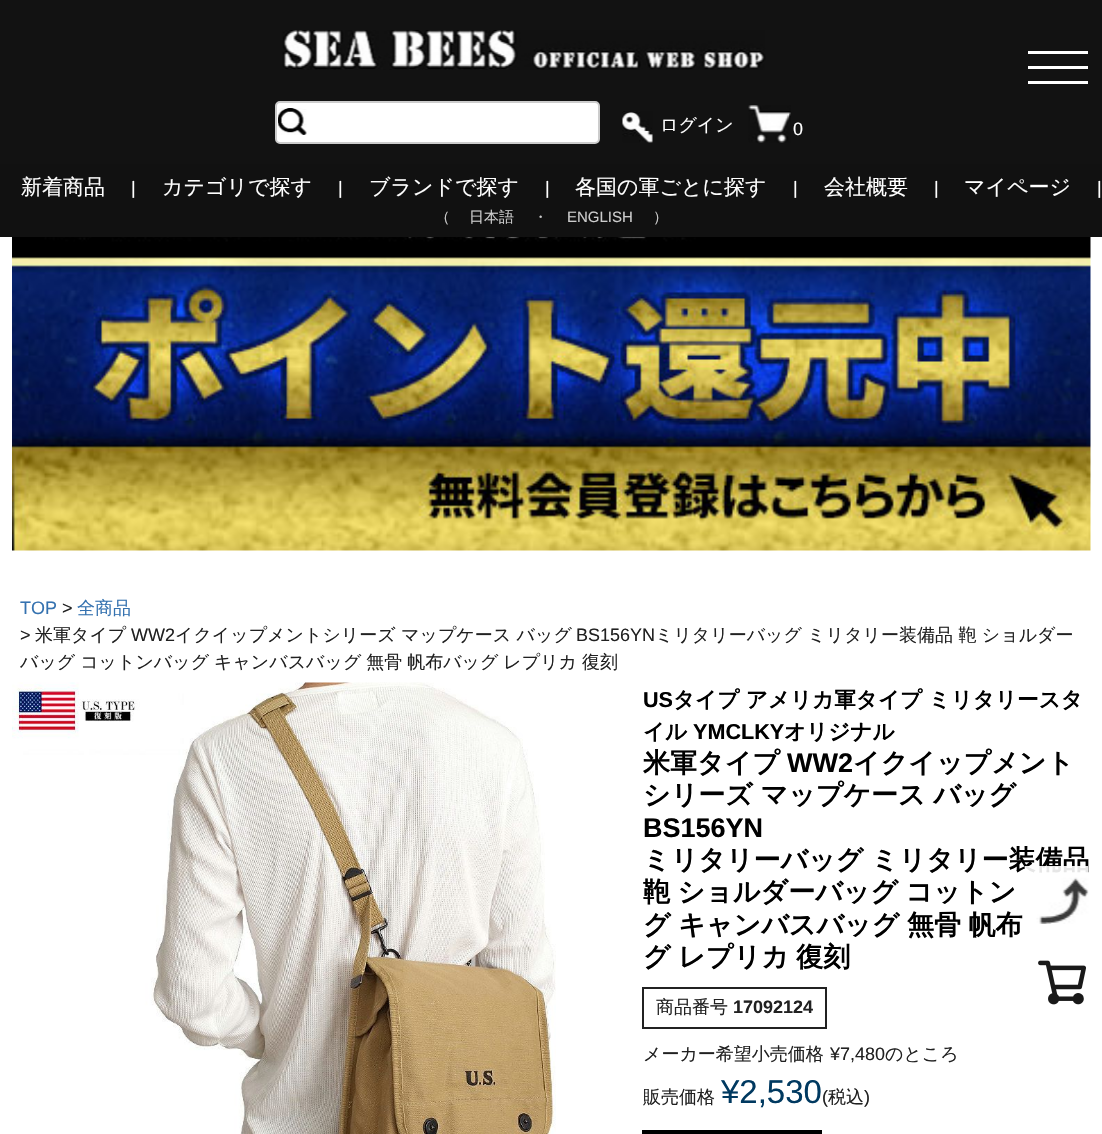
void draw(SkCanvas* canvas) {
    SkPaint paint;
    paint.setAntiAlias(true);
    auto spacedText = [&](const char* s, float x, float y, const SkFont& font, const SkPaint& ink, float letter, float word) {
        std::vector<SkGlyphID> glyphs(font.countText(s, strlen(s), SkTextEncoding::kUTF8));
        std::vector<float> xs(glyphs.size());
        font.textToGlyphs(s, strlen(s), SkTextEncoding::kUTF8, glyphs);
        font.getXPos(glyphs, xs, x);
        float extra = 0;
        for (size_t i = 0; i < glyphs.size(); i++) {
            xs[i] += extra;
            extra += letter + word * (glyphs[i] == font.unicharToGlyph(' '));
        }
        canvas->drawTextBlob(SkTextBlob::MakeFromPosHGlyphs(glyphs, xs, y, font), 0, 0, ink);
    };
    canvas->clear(0xFFFFFFFF);
    paint.setColor(0xFF121212);
    canvas->drawRect(SkRect::MakeXYWH(0, 0, 1102, 164), paint);
    canvas->drawImageRect(SkImages::DeferredFromEncodedData(SkData::MakeFromFileName("img1.png")), SkRect::MakeXYWH(282, 30, 484, 40), SkSamplingOptions());
    paint.setColor(0xFFFFFFFF);
    canvas->drawRect(SkRect::MakeXYWH(1028, 66, 60, 3), paint);
    canvas->drawRect(SkRect::MakeXYWH(1028, 51, 60, 3), paint);
    canvas->drawRect(SkRect::MakeXYWH(1028, 81, 60, 3), paint);
    canvas->drawRoundRect(SkRect::MakeXYWH(276, 102, 323, 41), 4, 4, paint);
    paint.setStyle(SkPaint::kStroke_Style);
    paint.setStrokeWidth(2);
    paint.setColor(0xFFCCCCCC);
    canvas->drawRoundRect(SkRect::MakeXYWH(276, 102, 323, 41), 4, 4, paint);
    canvas->drawImageRect(SkImages::DeferredFromEncodedData(SkData::MakeFromFileName("img2.png")), SkRect::MakeXYWH(278, 108, 29, 27), SkSamplingOptions());
    canvas->drawImageRect(SkImages::DeferredFromEncodedData(SkData::MakeFromFileName("img3.png")), SkRect::MakeXYWH(622, 111, 31, 32), SkSamplingOptions());
    SkFont font1(fontMgr->matchFamilyStyle("WenQuanYi Zen Hei", SkFontStyle(500, SkFontStyle::kNormal_Width, SkFontStyle::kUpright_Slant)), 18);
    font1.setSubpixel(true);
    paint.setStyle(SkPaint::kFill_Style);
    paint.setColor(0xFFFFFFFF);
    canvas->drawString("ログイン", 660, 131, font1, paint);
    canvas->drawImageRect(SkImages::DeferredFromEncodedData(SkData::MakeFromFileName("img4.png")), SkRect::MakeXYWH(748, 105, 43, 38), SkSamplingOptions());
    SkFont font2(fontMgr->matchFamilyStyle("Liberation Sans", SkFontStyle::Normal()), 18);
    font2.setSubpixel(true);
    canvas->drawString("0", 793, 135, font2, paint);
    paint.setColor(0xFF111111);
    canvas->drawRect(SkRect::MakeXYWH(0, 164, 1102, 73), paint);
    SkFont font3(fontMgr->matchFamilyStyle("WenQuanYi Zen Hei", SkFontStyle(500, SkFontStyle::kNormal_Width, SkFontStyle::kUpright_Slant)), 21);
    font3.setSubpixel(true);
    paint.setColor(0xFFFFFFFF);
    canvas->drawString("新着商品", 21, 194, font3, paint);
    canvas->drawString("|", 131, 194, font2, paint);
    canvas->drawString("カテゴリで探す", 162, 194, font3, paint);
    canvas->drawString("|", 338, 194, font2, paint);
    canvas->drawString("ブランドで探す", 369, 194, font3, paint);
    canvas->drawString("|", 545, 194, font2, paint);
    canvas->drawString("各国の軍ごとに探す", 575, 194, font3, paint);
    canvas->drawString("|", 793, 194, font2, paint);
    canvas->drawString("会社概要", 824, 194, font3, paint);
    canvas->drawString("|", 934, 194, font2, paint);
    canvas->drawString("マイページ", 964, 194, font3, paint);
    canvas->drawString("|", 1097, 194, font2, paint);
    SkFont font4(fontMgr->matchFamilyStyle("WenQuanYi Zen Hei", SkFontStyle(500, SkFontStyle::kNormal_Width, SkFontStyle::kUpright_Slant)), 15);
    font4.setSubpixel(true);
    paint.setColor(0xFFCCCCCC);
    canvas->drawString("（", 435, 222, font4, paint);
    canvas->drawString("日本語", 469, 222, font4, paint);
    canvas->drawString("・", 533, 222, font4, paint);
    SkFont font5(fontMgr->matchFamilyStyle("Liberation Sans", SkFontStyle::Normal()), 15);
    font5.setSubpixel(true);
    canvas->drawString("ENGLISH", 567, 222, font5, paint);
    canvas->drawString("）", 653, 222, font4, paint);
    canvas->drawImageRect(SkImages::DeferredFromEncodedData(SkData::MakeFromFileName("img5.png")), SkRect::MakeXYWH(12, 237, 1079, 314), SkSamplingOptions());
    paint.setColor(0xFF3572B0);
    canvas->drawString("TOP", 20, 614, font2, paint);
    paint.setColor(0xFF212121);
    canvas->drawString(">", 62, 614, font2, paint);
    paint.setColor(0xFF3572B0);
    canvas->drawString("全商品", 77, 614, font1, paint);
    paint.setColor(0xFF212121);
    canvas->drawString(">", 20, 641, font2, paint);
    canvas->drawString("米軍タイプ", 35, 641, font1, paint);
    canvas->drawString("WW2", 131, 641, font2, paint);
    canvas->drawString("イクイップメントシリーズ マップケース バッグ", 175, 641, font1, paint);
    canvas->drawString("BS156YN", 576, 641, font2, paint);
    canvas->drawString("ミリタリーバッグ ミリタリー装備品 鞄 ショルダー", 655, 641, font1, paint);
    spacedText("バッグ コットンバッグ キャンバスバッグ 無骨 帆布バッグ レプリカ 復刻", 20, 668, font1, paint, 0, -0.5f);
    canvas->drawImageRect(SkImages::DeferredFromEncodedData(SkData::MakeFromFileName("img6.png")), SkRect::MakeXYWH(12, 682, 544, 452), SkSamplingOptions());
    SkFont font6(fontMgr->matchFamilyStyle("Liberation Sans", SkFontStyle::Bold()), 21.6f);
    font6.setSubpixel(true);
    paint.setColor(0xFF000000);
    canvas->drawString("US", 643, 707, font6, paint);
    SkFont font7(fontMgr->matchFamilyStyle("WenQuanYi Zen Hei", SkFontStyle::Bold()), 21.6f);
    font7.setSubpixel(true);
    canvas->drawString("タイプ アメリカ軍タイプ ミリタリースタ", 673, 707, font7, paint);
    canvas->drawString("イル", 643, 739, font7, paint);
    canvas->drawString("YMCLKY", 693, 739, font6, paint);
    canvas->drawString("オリジナル", 784, 739, font7, paint);
    SkFont font8(fontMgr->matchFamilyStyle("WenQuanYi Zen Hei", SkFontStyle::Bold()), 27);
    font8.setSubpixel(true);
    canvas->drawString("米軍タイプ", 643, 772, font8, paint);
    SkFont font9(fontMgr->matchFamilyStyle("Liberation Sans", SkFontStyle::Bold()), 27);
    font9.setSubpixel(true);
    canvas->drawString("WW2", 787, 772, font9, paint);
    canvas->drawString("イクイップメント", 853, 772, font8, paint);
    spacedText("シリーズ マップケース バッグ", 643, 804, font8, paint, 0, -0.5f);
    canvas->drawString("BS156YN", 643, 837, font9, paint);
    spacedText("ミリタリーバッグ ミリタリー装備品", 643, 869, font8, paint, 0, -0.5f);
    spacedText("鞄 ショルダーバッグ コットン", 643, 901, font8, paint, 0, -0.5f);
    spacedText("グ キャンバスバッグ 無骨 帆布", 643, 934, font8, paint, 0, -0.5f);
    spacedText("グ レプリカ 復刻", 643, 966, font8, paint, 0, -0.5f);
    paint.setStyle(SkPaint::kStroke_Style);
    paint.setColor(0xFF212121);
    canvas->drawRect(SkRect::MakeXYWH(643, 988, 183, 40), paint);
    paint.setStyle(SkPaint::kFill_Style);
    canvas->drawString("商品番号", 656, 1013, font1, paint);
    SkFont font10(fontMgr->matchFamilyStyle("Liberation Sans", SkFontStyle::Bold()), 18);
    font10.setSubpixel(true);
    canvas->drawString("17092124", 733, 1013, font10, paint);
    canvas->drawString("メーカー希望小売価格", 643, 1060, font1, paint);
    canvas->drawString("¥7,480", 830, 1060, font2, paint);
    canvas->drawString("のところ", 885, 1060, font1, paint);
    canvas->drawString("販売価格", 643, 1103, font1, paint);
    SkFont font11(fontMgr->matchFamilyStyle("Liberation Sans", SkFontStyle::Normal()), 33);
    font11.setSubpixel(true);
    paint.setColor(0xFF003960);
    canvas->drawString("¥2,530", 721, 1103, font11, paint);
    paint.setColor(0xFF212121);
    canvas->drawString("(", 822, 1103, font2, paint);
    canvas->drawString("税込", 828, 1103, font1, paint);
    canvas->drawString(")", 864, 1103, font2, paint);
    paint.setColor(0xFF000000);
    canvas->drawRect(SkRect::MakeXYWH(642, 1130, 180, 4), paint);
    paint.setColor(0xE6FFFFFF);
    canvas->drawRect(SkRect::MakeXYWH(1025, 866, 63, 7), paint);
    canvas->drawImageRect(SkImages::DeferredFromEncodedData(SkData::MakeFromFileName("img7.png")), SkRect::MakeXYWH(1036, 877, 53, 47), SkSamplingOptions());
    canvas->drawImageRect(SkImages::DeferredFromEncodedData(SkData::MakeFromFileName("img8.png")), SkRect::MakeXYWH(1038, 960, 48, 45), SkSamplingOptions());
}
